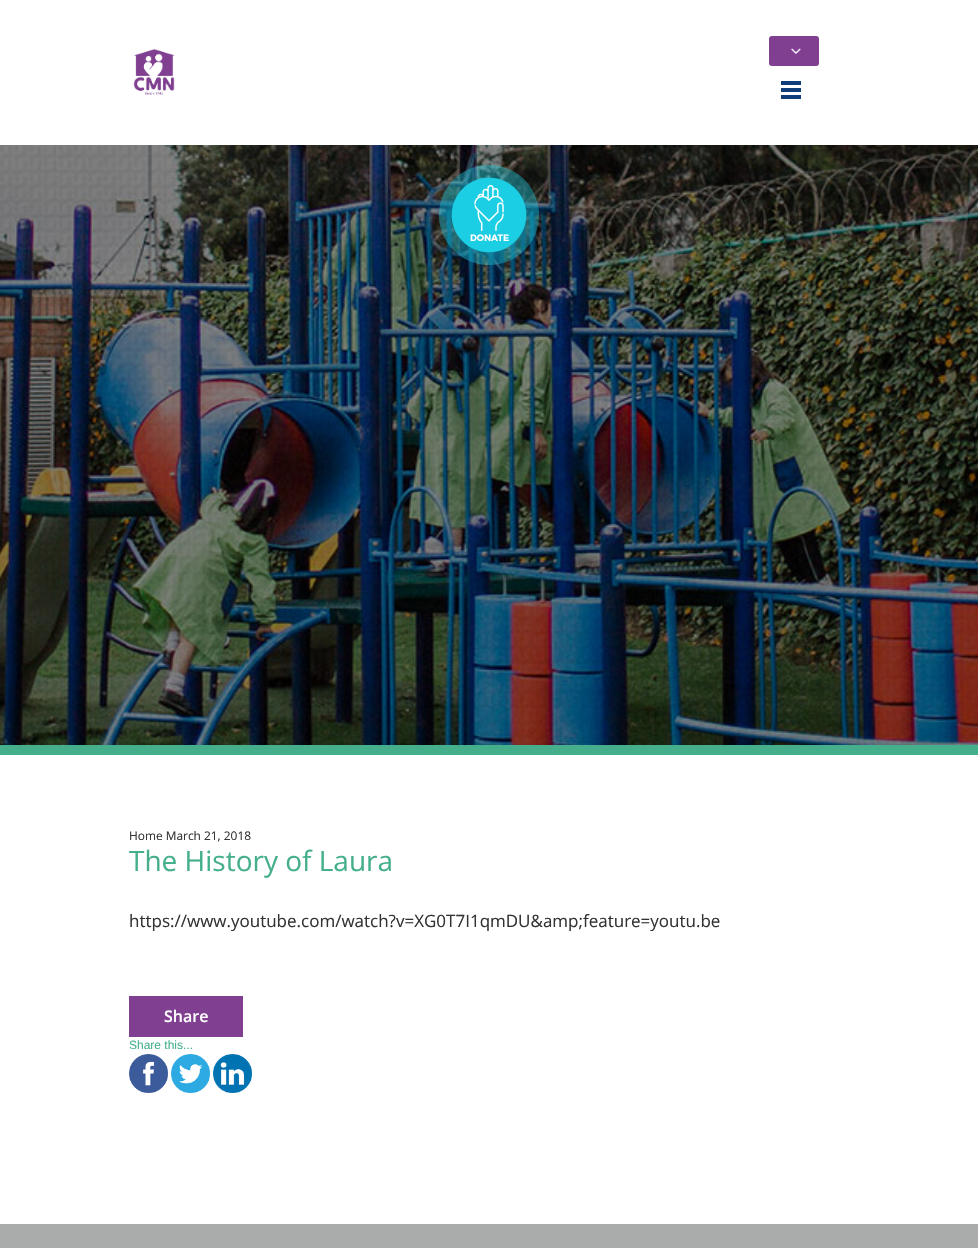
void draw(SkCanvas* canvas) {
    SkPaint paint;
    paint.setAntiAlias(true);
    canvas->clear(0xFFFFFFFF);
    canvas->drawImageRect(SkImages::DeferredFromEncodedData(SkData::MakeFromFileName("img1.png")), SkRect::MakeXYWH(133, 48, 42, 47), SkSamplingOptions());
    paint.setColor(0xFF803F91);
    canvas->drawRoundRect(SkRect::MakeXYWH(769, 36, 50, 30), 3, 3, paint);
    canvas->drawImageRect(SkImages::DeferredFromEncodedData(SkData::MakeFromFileName("img2.png")), SkRect::MakeXYWH(791, 48, 10, 6), SkSamplingOptions());
    canvas->drawImageRect(SkImages::DeferredFromEncodedData(SkData::MakeFromFileName("img3.png")), SkRect::MakeXYWH(781, 81, 20, 18), SkSamplingOptions());
    canvas->drawImageRect(SkImages::DeferredFromEncodedData(SkData::MakeFromFileName("img5.png")), SkRect::MakeXYWH(0, 145, 978, 600), SkSamplingOptions());
    canvas->drawImageRect(SkImages::DeferredFromEncodedData(SkData::MakeFromFileName("img4.png")), SkRect::MakeXYWH(439, 165, 100, 100), SkSamplingOptions());
    paint.setColor(0xFF45AF8B);
    canvas->drawRect(SkRect::MakeXYWH(0, 745, 978, 10), paint);
    SkFont font1(fontMgr->matchFamilyStyle("Open Sans", SkFontStyle::Normal()), 11.9f);
    font1.setSubpixel(true);
    paint.setColor(0xFF333333);
    canvas->drawString("Home March 21, 2018", 129, 840, font1, paint);
    SkFont font2(fontMgr->matchFamilyStyle("Open Sans", SkFontStyle::Normal()), 28);
    font2.setSubpixel(true);
    paint.setColor(0xFF45AF8B);
    canvas->drawString("The History of Laura", 129, 871, font2, paint);
    SkFont font3(fontMgr->matchFamilyStyle("Open Sans", SkFontStyle::Normal()), 17);
    font3.setSubpixel(true);
    paint.setColor(0xFF333333);
    canvas->drawString("https://www.youtube.com/watch?v=XG0T7I1qmDU&amp;feature=youtu.be", 129, 927, font3, paint);
    paint.setColor(0xFF803F91);
    canvas->drawRect(SkRect::MakeXYWH(129, 996, 114, 41), paint);
    SkFont font4(fontMgr->matchFamilyStyle("Open Sans", SkFontStyle(600, SkFontStyle::kNormal_Width, SkFontStyle::kUpright_Slant)), 16);
    font4.setSubpixel(true);
    paint.setColor(0xFFFFFFFF);
    canvas->drawString("Share", 164, 1022, font4, paint);
    SkFont font5(fontMgr->matchFamilyStyle("Liberation Sans", SkFontStyle::Normal()), 12);
    font5.setSubpixel(true);
    paint.setColor(0xFF45AF8B);
    canvas->drawString("Share this...", 129, 1049, font5, paint);
    canvas->drawImageRect(SkImages::DeferredFromEncodedData(SkData::MakeFromFileName("img6.png")), SkRect::MakeXYWH(129, 1054, 39, 39), SkSamplingOptions());
    canvas->drawImageRect(SkImages::DeferredFromEncodedData(SkData::MakeFromFileName("img7.png")), SkRect::MakeXYWH(171, 1054, 39, 39), SkSamplingOptions());
    canvas->drawImageRect(SkImages::DeferredFromEncodedData(SkData::MakeFromFileName("img8.png")), SkRect::MakeXYWH(213, 1054, 39, 39), SkSamplingOptions());
    paint.setColor(0xFFAAACAB);
    canvas->drawRect(SkRect::MakeXYWH(0, 1224, 978, 24), paint);
}
